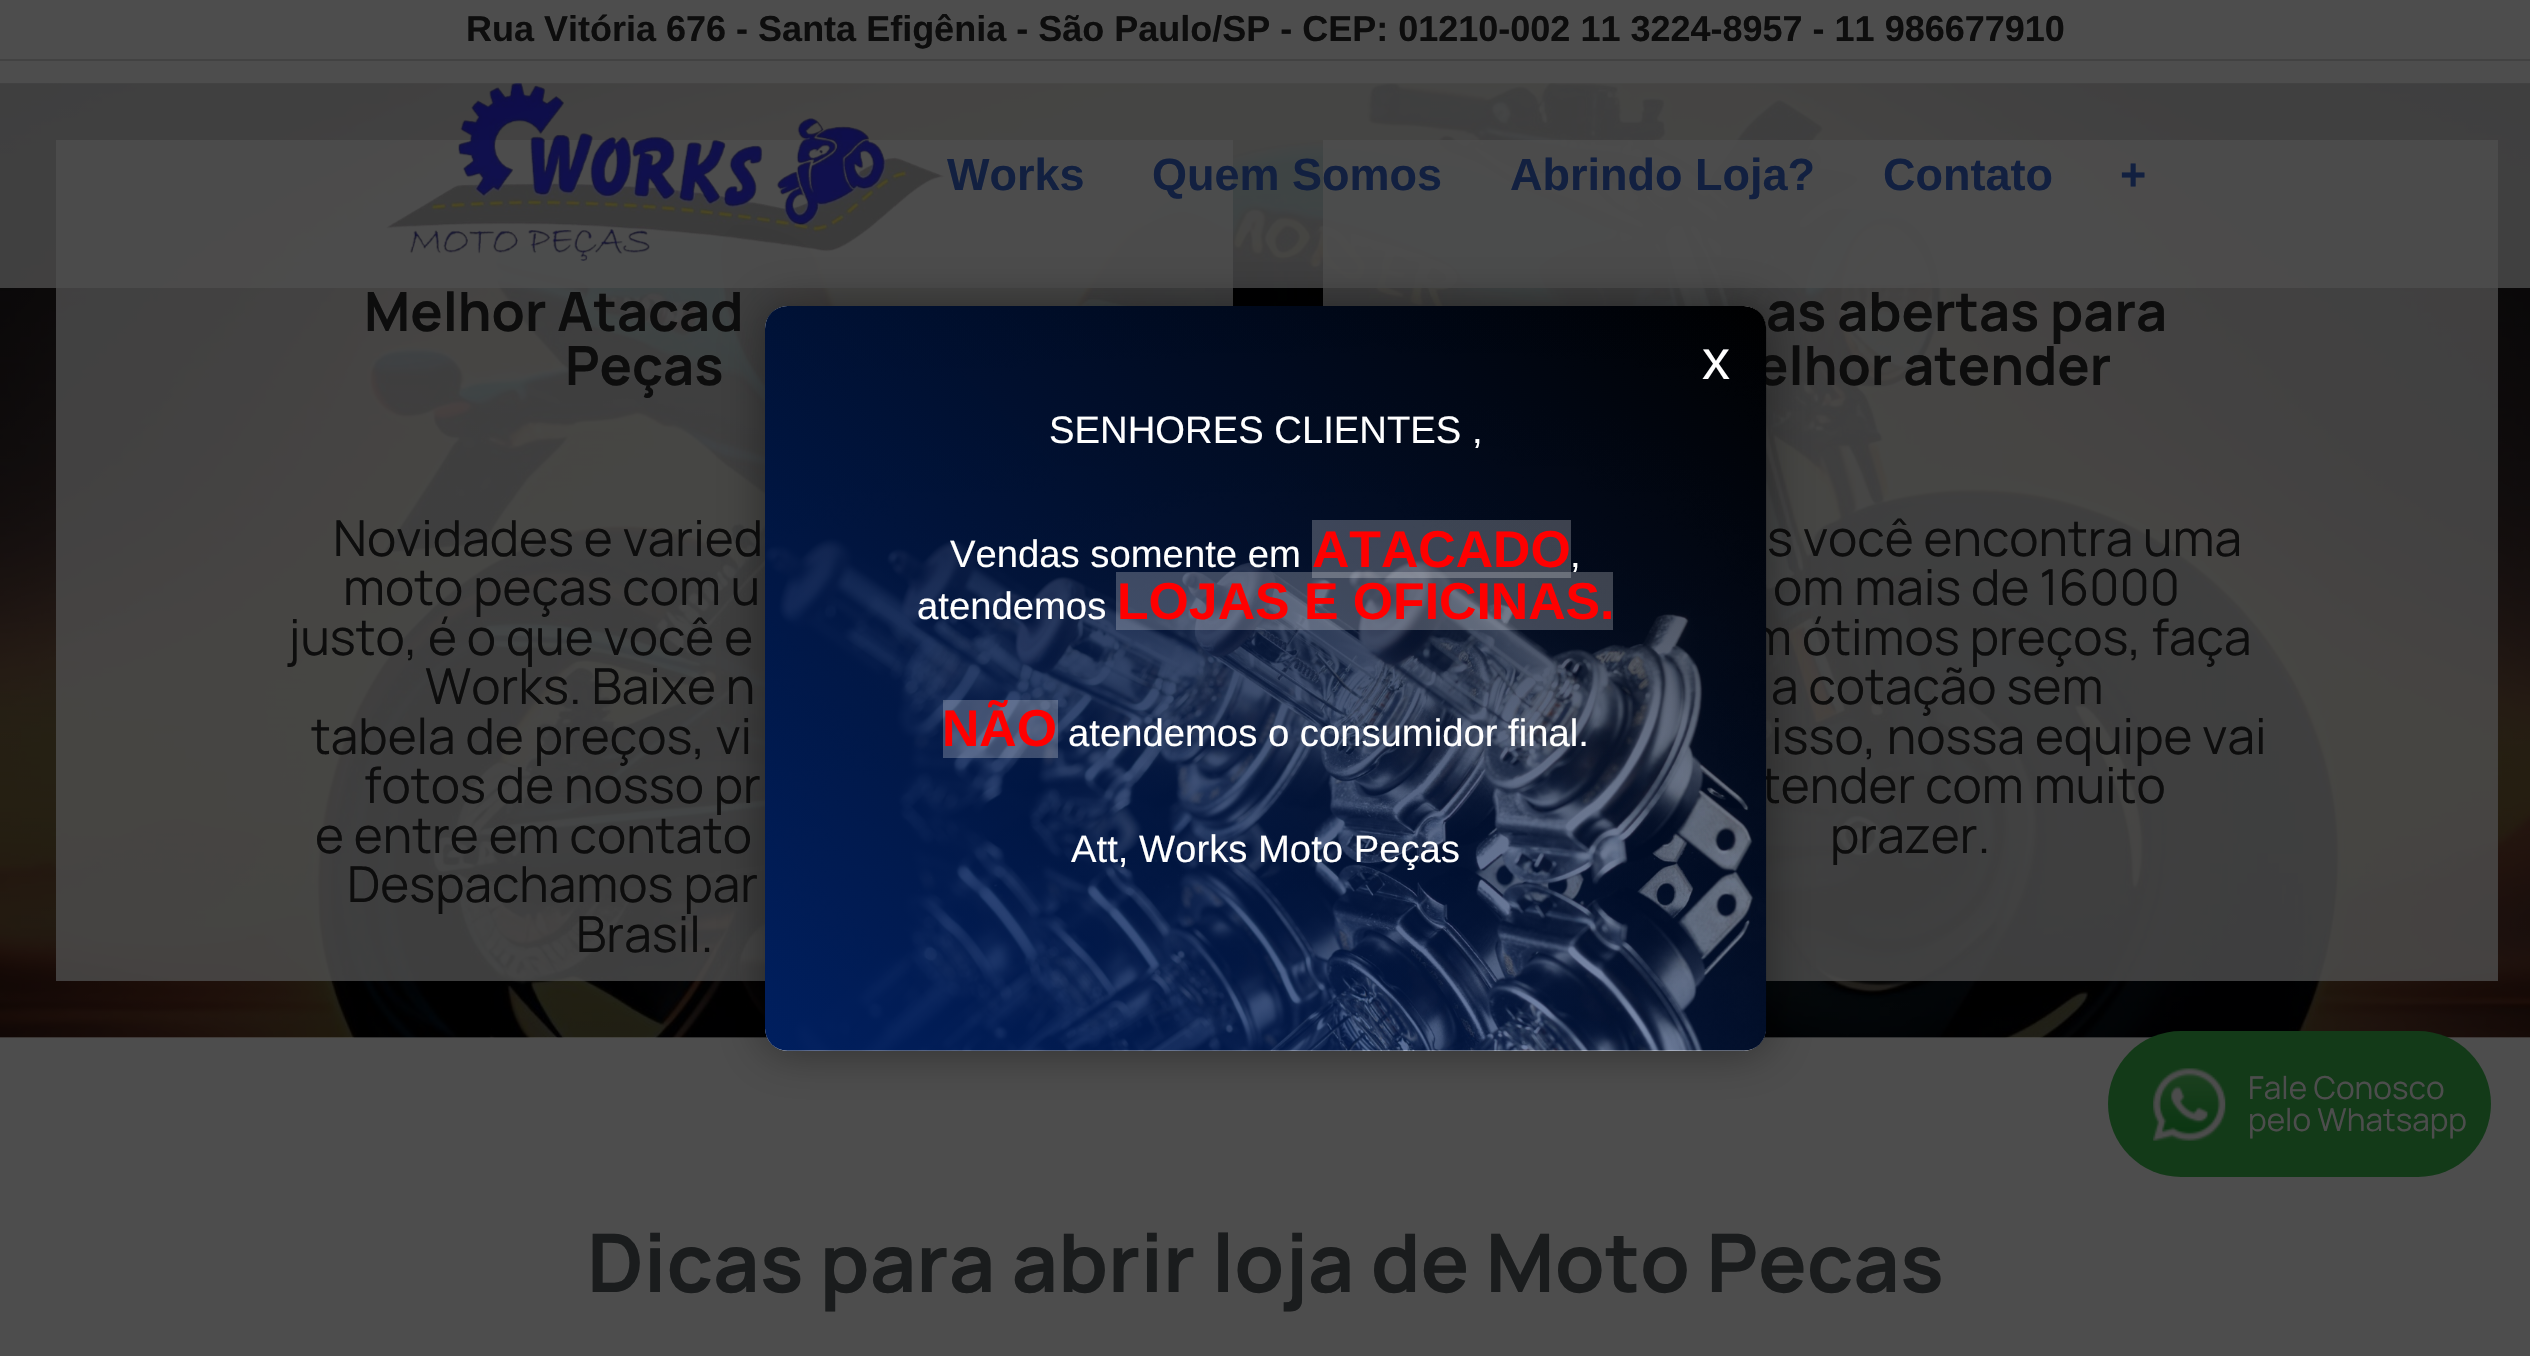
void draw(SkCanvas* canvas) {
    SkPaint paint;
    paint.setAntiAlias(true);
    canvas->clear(0xFF4D4D4D);
    canvas->drawImageRect(SkImages::DeferredFromEncodedData(SkData::MakeFromFileName("img2.png")), SkRect::MakeXYWH(0, 83, 2530, 955), SkSamplingOptions());
    paint.setColor(0xCC4D4D4D);
    canvas->drawRect(SkRect::MakeXYWH(56, 140, 1177, 841), paint);
    canvas->drawRect(SkRect::MakeXYWH(1323, 140, 1175, 841), paint);
    canvas->drawRect(SkRect::MakeXYWH(0, 83, 2530, 205), paint);
    paint.setColor(0xFF424242);
    canvas->drawRect(SkRect::MakeXYWH(0, 59, 2530, 2), paint);
    SkFont font1(fontMgr->matchFamilyStyle("Liberation Sans", SkFontStyle::Bold()), 36);
    font1.setSubpixel(true);
    paint.setColor(0xFF0D0D0D);
    canvas->drawString("Rua Vitória 676 - Santa Efigênia - São Paulo/SP - CEP: 01210-002 11 3224-8957 - 11 986677910", 466, 41, font1, paint);
    canvas->drawImageRect(SkImages::DeferredFromEncodedData(SkData::MakeFromFileName("img1.png")), SkRect::MakeXYWH(386, 83, 559, 178), SkSamplingOptions());
    SkFont font2(fontMgr->matchFamilyStyle("Liberation Sans", SkFontStyle::Bold()), 45);
    font2.setSubpixel(true);
    paint.setColor(0xFF122040);
    canvas->drawString("Works", 947, 190, font2, paint);
    canvas->drawString("Quem Somos", 1152, 190, font2, paint);
    canvas->drawString("Abrindo Loja?", 1510, 190, font2, paint);
    canvas->drawString("Contato", 1883, 190, font2, paint);
    canvas->drawString("+", 2120, 190, font2, paint);
    SkFont font3(fontMgr->matchFamilyStyle("Manrope", SkFontStyle::Bold()), 54);
    font3.setSubpixel(true);
    paint.setColor(0xFF0D0D0D);
    canvas->drawString("Melhor Atacad", 364, 331, font3, paint);
    canvas->drawString("Peças", 565, 385, font3, paint);
    SkFont font4(fontMgr->matchFamilyStyle("Manrope", SkFontStyle::Normal()), 49.5f);
    font4.setSubpixel(true);
    canvas->drawString("Novidades e varied", 333, 556, font4, paint);
    canvas->drawString("moto peças com u", 343, 605, font4, paint);
    canvas->drawString("justo, é o que você e", 288, 655, font4, paint);
    canvas->drawString("Works. Baixe n", 425, 704, font4, paint);
    canvas->drawString("tabela de preços, vi", 311, 754, font4, paint);
    canvas->drawString("fotos de nosso pr", 364, 803, font4, paint);
    canvas->drawString("e entre em contato", 315, 853, font4, paint);
    canvas->drawString("Despachamos par", 347, 902, font4, paint);
    canvas->drawString("Brasil.", 576, 952, font4, paint);
    canvas->drawString("as abertas para", 1766, 331, font3, paint);
    canvas->drawString("elhor atender", 1756, 385, font3, paint);
    canvas->drawString("s você encontra uma", 1767, 556, font4, paint);
    canvas->drawString("om mais de 16000", 1773, 605, font4, paint);
    canvas->drawString("m ótimos preços, faça", 1750, 655, font4, paint);
    canvas->drawString("a cotação sem", 1771, 704, font4, paint);
    canvas->drawString("isso, nossa equipe vai", 1771, 754, font4, paint);
    canvas->drawString("tender com muito", 1761, 803, font4, paint);
    canvas->drawString("prazer.", 1830, 853, font4, paint);
    SkFont font5(fontMgr->matchFamilyStyle("Manrope", SkFontStyle::Bold()), 81);
    font5.setSubpixel(true);
    paint.setColor(0xFF1A1C1D);
    canvas->drawString("Dicas para abrir loja de Moto Pecas", 587, 1292, font5, paint);
    paint.setColor(0x61000000);
    paint.setMaskFilter(SkMaskFilter::MakeBlur(kNormal_SkBlurStyle, 22.5f));
    canvas->drawRoundRect(SkRect::MakeXYWH(763, 304, 1006, 749), 25, 25, paint);
    paint.setMaskFilter(nullptr);
    paint.setColor(0xFFFFFFFF);
    canvas->drawRoundRect(SkRect::MakeXYWH(765, 306, 1001, 745), 23, 23, paint);
    canvas->drawImageRect(SkImages::DeferredFromEncodedData(SkData::MakeFromFileName("img3.png")), SkRect::MakeXYWH(765, 306, 1002, 745), SkSamplingOptions());
    SkFont font6(fontMgr->matchFamilyStyle("Liberation Sans", SkFontStyle::Normal()), 56);
    font6.setSubpixel(true);
    canvas->drawString("x", 1702, 379, font6, paint);
    SkFont font7(fontMgr->matchFamilyStyle("Liberation Sans", SkFontStyle::Normal()), 38.25f);
    font7.setSubpixel(true);
    canvas->drawString("SENHORES CLIENTES ,", 1049, 443, font7, paint);
    canvas->drawString("Vendas somente em", 950, 567, font7, paint);
    paint.setColor(0x3BFFFFFF);
    canvas->drawRect(SkRect::MakeXYWH(1312, 520, 259, 58), paint);
    SkFont font8(fontMgr->matchFamilyStyle("Liberation Sans", SkFontStyle::Bold()), 51.75f);
    font8.setSubpixel(true);
    paint.setColor(0xFFFF0000);
    canvas->drawString("ATACADO", 1312, 567, font8, paint);
    paint.setColor(0xFFFFFFFF);
    canvas->drawString(",", 1570, 567, font7, paint);
    canvas->drawString("atendemos", 917, 619, font7, paint);
    paint.setColor(0x3BFFFFFF);
    canvas->drawRect(SkRect::MakeXYWH(1116, 572, 497, 58), paint);
    paint.setColor(0xFFFF0000);
    canvas->drawString("LOJAS E OFICINAS.", 1117, 619, font8, paint);
    paint.setColor(0x3BFFFFFF);
    canvas->drawRect(SkRect::MakeXYWH(943, 700, 115, 58), paint);
    paint.setColor(0xFFFF0000);
    canvas->drawString("NÃO", 942, 746, font8, paint);
    paint.setColor(0xFFFFFFFF);
    canvas->drawString("atendemos o consumidor final.", 1068, 746, font7, paint);
    canvas->drawString("Att, Works Moto Peças", 1071, 862, font7, paint);
    paint.setColor(0xFF133A18);
    canvas->drawRoundRect(SkRect::MakeXYWH(2108, 1031, 383, 146), 73, 73, paint);
    canvas->drawImageRect(SkImages::DeferredFromEncodedData(SkData::MakeFromFileName("img4.png")), SkRect::MakeXYWH(2153, 1068, 73, 73), SkSamplingOptions());
    SkFont font9(fontMgr->matchFamilyStyle("Manrope", SkFontStyle::Normal()), 31.5f);
    font9.setSubpixel(true);
    paint.setColor(0xFF4D4D4D);
    canvas->drawString("Fale Conosco", 2248, 1099, font9, paint);
    canvas->drawString("pelo Whatsapp", 2248, 1131, font9, paint);
}
